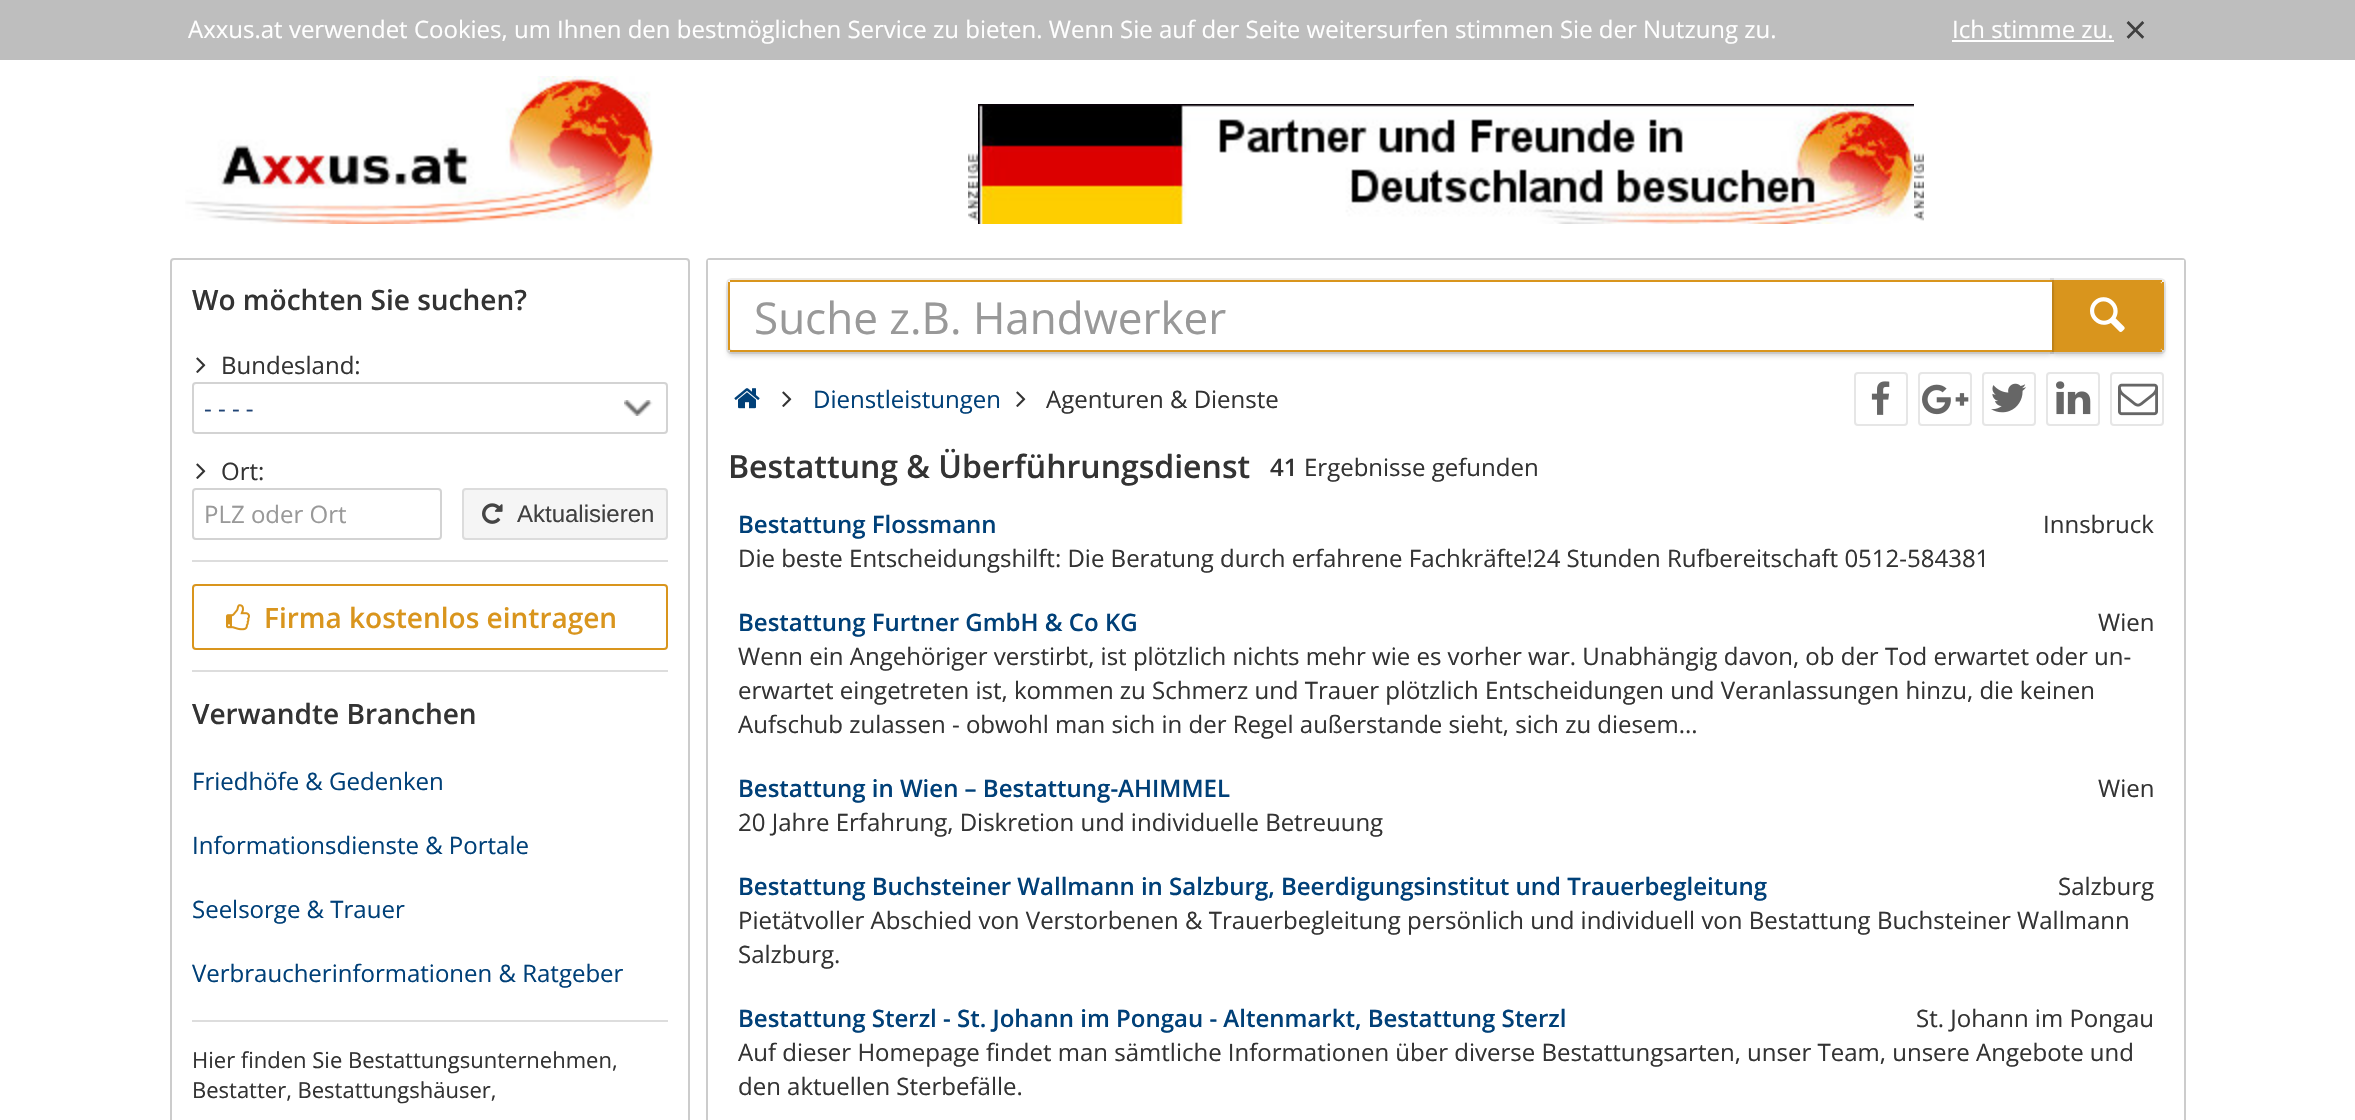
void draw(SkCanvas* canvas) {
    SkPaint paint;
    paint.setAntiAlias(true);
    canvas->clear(0xFFFFFFFF);
    paint.setColor(0xFFBEBEBE);
    canvas->drawRect(SkRect::MakeXYWH(0, 0, 2355, 60), paint);
    SkFont font1(fontMgr->matchFamilyStyle("Open Sans", SkFontStyle::Normal()), 24);
    font1.setSubpixel(true);
    paint.setColor(0xFFFFFFFF);
    canvas->drawString("Axxus.at verwendet Cookies, um Ihnen den bestmöglichen Service zu bieten. Wenn Sie auf der Seite weitersurfen stimmen Sie der Nutzung zu.", 188, 38, font1, paint);
    canvas->drawString("Ich stimme zu.", 1952, 38, font1, paint);
    canvas->drawRect(SkRect::MakeXYWH(1952, 40, 162, 2), paint);
    SkFont font2(fontMgr->matchFamilyStyle("Open Sans", SkFontStyle::Normal()), 40);
    font2.setSubpixel(true);
    paint.setColor(0xFF404040);
    canvas->drawString("×", 2124, 44, font2, paint);
    canvas->drawImageRect(SkImages::DeferredFromEncodedData(SkData::MakeFromFileName("img1.png")), SkRect::MakeXYWH(185, 76, 469, 148), SkSamplingOptions());
    canvas->drawImageRect(SkImages::DeferredFromEncodedData(SkData::MakeFromFileName("img2.png")), SkRect::MakeXYWH(968, 153, 10, 68), SkSamplingOptions());
    canvas->drawImageRect(SkImages::DeferredFromEncodedData(SkData::MakeFromFileName("img3.png")), SkRect::MakeXYWH(978, 104, 936, 120), SkSamplingOptions());
    canvas->drawImageRect(SkImages::DeferredFromEncodedData(SkData::MakeFromFileName("img2.png")), SkRect::MakeXYWH(1914, 153, 10, 68), SkSamplingOptions());
    paint.setStyle(SkPaint::kStroke_Style);
    paint.setStrokeWidth(2);
    paint.setColor(0xFFCCCCCC);
    canvas->drawRoundRect(SkRect::MakeXYWH(171, 259, 518, 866), 3, 3, paint);
    SkFont font3(fontMgr->matchFamilyStyle("Open Sans", SkFontStyle(600, SkFontStyle::kNormal_Width, SkFontStyle::kUpright_Slant)), 28);
    font3.setSubpixel(true);
    paint.setStyle(SkPaint::kFill_Style);
    paint.setColor(0xFF333333);
    canvas->drawString("Wo möchten Sie suchen?", 192, 310, font3, paint);
    canvas->drawImageRect(SkImages::DeferredFromEncodedData(SkData::MakeFromFileName("img4.png")), SkRect::MakeXYWH(196, 357, 10, 16), SkSamplingOptions());
    canvas->drawString("Bundesland:", 221, 374, font1, paint);
    canvas->drawImageRect(SkImages::DeferredFromEncodedData(SkData::MakeFromFileName("img5.png")), SkRect::MakeXYWH(624, 400, 29, 16), SkSamplingOptions());
    paint.setStyle(SkPaint::kStroke_Style);
    paint.setColor(0xFFD3D3D3);
    canvas->drawRoundRect(SkRect::MakeXYWH(193, 383, 474, 50), 3, 3, paint);
    paint.setStyle(SkPaint::kFill_Style);
    paint.setColor(0xFF204475);
    canvas->drawString("- - - -", 204, 417, font1, paint);
    canvas->drawImageRect(SkImages::DeferredFromEncodedData(SkData::MakeFromFileName("img4.png")), SkRect::MakeXYWH(196, 463, 10, 16), SkSamplingOptions());
    paint.setColor(0xFF333333);
    canvas->drawString("Ort:", 221, 480, font1, paint);
    paint.setStyle(SkPaint::kStroke_Style);
    paint.setColor(0xFFD3D3D3);
    canvas->drawRoundRect(SkRect::MakeXYWH(193, 489, 248, 50), 3, 3, paint);
    paint.setStyle(SkPaint::kFill_Style);
    paint.setColor(0xFF999999);
    canvas->drawString("PLZ oder Ort", 204, 523, font1, paint);
    paint.setColor(0xFFF5F5F5);
    canvas->drawRoundRect(SkRect::MakeXYWH(462, 488, 206, 52), 4, 4, paint);
    paint.setStyle(SkPaint::kStroke_Style);
    paint.setColor(0x1A000000);
    canvas->drawRoundRect(SkRect::MakeXYWH(463, 489, 204, 50), 3, 3, paint);
    canvas->drawImageRect(SkImages::DeferredFromEncodedData(SkData::MakeFromFileName("img6.png")), SkRect::MakeXYWH(482, 503, 21, 21), SkSamplingOptions());
    SkFont font4(fontMgr->matchFamilyStyle("Liberation Sans", SkFontStyle::Normal()), 24);
    font4.setSubpixel(true);
    paint.setStyle(SkPaint::kFill_Style);
    paint.setColor(0xFF404040);
    canvas->drawString("Aktualisieren", 517, 522, font4, paint);
    paint.setColor(0xFFDDDDDD);
    canvas->drawRect(SkRect::MakeXYWH(192, 560, 476, 2), paint);
    paint.setStyle(SkPaint::kStroke_Style);
    paint.setColor(0xFFD9951D);
    canvas->drawRoundRect(SkRect::MakeXYWH(193, 585, 474, 64), 3, 3, paint);
    canvas->drawImageRect(SkImages::DeferredFromEncodedData(SkData::MakeFromFileName("img7.png")), SkRect::MakeXYWH(226, 604, 24, 27), SkSamplingOptions());
    paint.setStyle(SkPaint::kFill_Style);
    canvas->drawString("Firma kostenlos eintragen", 264, 628, font3, paint);
    paint.setColor(0xFFDDDDDD);
    canvas->drawRect(SkRect::MakeXYWH(192, 670, 476, 2), paint);
    paint.setColor(0xFF333333);
    canvas->drawString("Verwandte Branchen", 192, 724, font3, paint);
    paint.setColor(0xFF004078);
    canvas->drawString("Friedhöfe & Gedenken", 192, 790, font1, paint);
    canvas->drawString("Informationsdienste & Portale", 192, 854, font1, paint);
    canvas->drawString("Seelsorge & Trauer", 192, 918, font1, paint);
    canvas->drawString("Verbraucherinformationen & Ratgeber", 192, 982, font1, paint);
    paint.setColor(0xFFDDDDDD);
    canvas->drawRect(SkRect::MakeXYWH(192, 1020, 476, 2), paint);
    SkFont font5(fontMgr->matchFamilyStyle("Open Sans", SkFontStyle::Normal()), 22);
    font5.setSubpixel(true);
    paint.setColor(0xFF333333);
    canvas->drawString("Hier finden Sie Bestattungsunternehmen,", 192, 1068, font5, paint);
    canvas->drawString("Bestatter, Bestattungshäuser,", 192, 1098, font5, paint);
    paint.setStyle(SkPaint::kStroke_Style);
    paint.setColor(0xFFCCCCCC);
    canvas->drawRoundRect(SkRect::MakeXYWH(707, 259, 1478, 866), 3, 3, paint);
    paint.setStyle(SkPaint::kFill_Style);
    paint.setColor(0xFFFFFFFF);
    canvas->drawRect(SkRect::MakeXYWH(708, 260, 1476, 2), paint);
    paint.setStyle(SkPaint::kStroke_Style);
    paint.setColor(0xFFEBEBEB);
    canvas->drawPath(SkPathBuilder().moveTo(2051, 279).lineTo(2160, 279).cubicTo(2163, 279, 2165, 281, 2165, 284).lineTo(2165, 348).cubicTo(2165, 351, 2163, 353, 2160, 353).lineTo(2051, 353).close().detach(), paint);
    paint.setStyle(SkPaint::kFill_Style);
    paint.setColor(0x29000000);
    paint.setMaskFilter(SkMaskFilter::MakeBlur(kNormal_SkBlurStyle, 2));
    canvas->drawRoundRect(SkRect::MakeXYWH(2052, 284, 112, 72), 4, 4, paint);
    paint.setMaskFilter(nullptr);
    paint.setColor(0xFFD9951D);
    canvas->drawPath(SkPathBuilder().moveTo(2052, 282).lineTo(2160, 282).cubicTo(2161, 282, 2162, 283, 2162, 284).lineTo(2162, 348).cubicTo(2162, 349, 2161, 350, 2160, 350).lineTo(2052, 350).close().detach(), paint);
    canvas->drawRect(SkRect::MakeXYWH(2052, 280, 110, 2), paint);
    canvas->drawRect(SkRect::MakeXYWH(2052, 350, 110, 2), paint);
    paint.setStyle(SkPaint::kStroke_Style);
    paint.setColor(0x14000000);
    canvas->drawPath(SkPathBuilder().moveTo(732, 279).lineTo(2053, 279).lineTo(2053, 353).lineTo(732, 353).cubicTo(729, 353, 727, 351, 727, 348).lineTo(727, 284).cubicTo(727, 281, 729, 279, 732, 279).close().detach(), paint);
    paint.setStyle(SkPaint::kFill_Style);
    paint.setColor(0x29000000);
    paint.setMaskFilter(SkMaskFilter::MakeBlur(kNormal_SkBlurStyle, 2));
    canvas->drawRoundRect(SkRect::MakeXYWH(728, 284, 1324, 72), 4, 4, paint);
    paint.setMaskFilter(nullptr);
    paint.setColor(0xFFFFFFFF);
    canvas->drawPath(SkPathBuilder().moveTo(732, 282).lineTo(2052, 282).lineTo(2052, 350).lineTo(732, 350).cubicTo(731, 350, 730, 349, 730, 348).lineTo(730, 284).cubicTo(730, 283, 731, 282, 732, 282).close().detach(), paint);
    paint.setColor(0xFFD9951D);
    canvas->drawRect(SkRect::MakeXYWH(730, 280, 1322, 2), paint);
    canvas->drawRect(SkRect::MakeXYWH(730, 350, 1322, 2), paint);
    canvas->drawRect(SkRect::MakeXYWH(728, 282, 2, 68), paint);
    SkFont font6(fontMgr->matchFamilyStyle("Open Sans", SkFontStyle::Normal()), 44);
    font6.setSubpixel(true);
    paint.setColor(0xFF999999);
    canvas->drawString("Suche z.B. Handwerker", 754, 334, font6, paint);
    paint.setColor(0xFFD9951D);
    canvas->drawRect(SkRect::MakeXYWH(2162, 282, 2, 68), paint);
    canvas->drawImageRect(SkImages::DeferredFromEncodedData(SkData::MakeFromFileName("img8.png")), SkRect::MakeXYWH(2090, 297, 35, 35), SkSamplingOptions());
    canvas->drawImageRect(SkImages::DeferredFromEncodedData(SkData::MakeFromFileName("img9.png")), SkRect::MakeXYWH(734, 388, 26, 21), SkSamplingOptions());
    canvas->drawImageRect(SkImages::DeferredFromEncodedData(SkData::MakeFromFileName("img4.png")), SkRect::MakeXYWH(782, 391, 10, 16), SkSamplingOptions());
    paint.setColor(0xFF004078);
    canvas->drawString("Dienstleistungen", 813, 408, font1, paint);
    canvas->drawImageRect(SkImages::DeferredFromEncodedData(SkData::MakeFromFileName("img4.png")), SkRect::MakeXYWH(1016, 391, 10, 16), SkSamplingOptions());
    paint.setColor(0xFF333333);
    canvas->drawString("Agenturen & Dienste", 1046, 408, font1, paint);
    paint.setStyle(SkPaint::kStroke_Style);
    paint.setColor(0xFFE6E6E6);
    canvas->drawRoundRect(SkRect::MakeXYWH(1855, 373, 52, 52), 3, 3, paint);
    canvas->drawImageRect(SkImages::DeferredFromEncodedData(SkData::MakeFromFileName("img10.png")), SkRect::MakeXYWH(1871, 381, 19, 34), SkSamplingOptions());
    canvas->drawRoundRect(SkRect::MakeXYWH(1919, 373, 52, 52), 3, 3, paint);
    canvas->drawImageRect(SkImages::DeferredFromEncodedData(SkData::MakeFromFileName("img11.png")), SkRect::MakeXYWH(1922, 384, 47, 31), SkSamplingOptions());
    canvas->drawRoundRect(SkRect::MakeXYWH(1983, 373, 52, 52), 3, 3, paint);
    canvas->drawImageRect(SkImages::DeferredFromEncodedData(SkData::MakeFromFileName("img12.png")), SkRect::MakeXYWH(1991, 383, 35, 30), SkSamplingOptions());
    canvas->drawRoundRect(SkRect::MakeXYWH(2047, 373, 52, 52), 3, 3, paint);
    canvas->drawImageRect(SkImages::DeferredFromEncodedData(SkData::MakeFromFileName("img13.png")), SkRect::MakeXYWH(2056, 381, 35, 34), SkSamplingOptions());
    canvas->drawRoundRect(SkRect::MakeXYWH(2111, 373, 52, 52), 3, 3, paint);
    canvas->drawImageRect(SkImages::DeferredFromEncodedData(SkData::MakeFromFileName("img14.png")), SkRect::MakeXYWH(2118, 383, 40, 33), SkSamplingOptions());
    SkFont font7(fontMgr->matchFamilyStyle("Open Sans", SkFontStyle(600, SkFontStyle::kNormal_Width, SkFontStyle::kUpright_Slant)), 32);
    font7.setSubpixel(true);
    paint.setStyle(SkPaint::kFill_Style);
    paint.setColor(0xFF333333);
    canvas->drawString("Bestattung & Überführungsdienst", 728, 478, font7, paint);
    SkFont font8(fontMgr->matchFamilyStyle("Open Sans", SkFontStyle(600, SkFontStyle::kNormal_Width, SkFontStyle::kUpright_Slant)), 24);
    font8.setSubpixel(true);
    canvas->drawString("41", 1270, 476, font8, paint);
    canvas->drawString("Ergebnisse gefunden", 1304, 476, font1, paint);
    paint.setColor(0xFF004078);
    canvas->drawString("Bestattung Flossmann", 738, 533, font8, paint);
    paint.setColor(0xFF333333);
    canvas->drawString("Innsbruck", 2043, 533, font1, paint);
    canvas->drawString("Die beste Entscheidungshilft: Die Beratung durch erfahrene Fachkräfte!24 Stunden Rufbereitschaft 0512-584381", 738, 567, font1, paint);
    paint.setColor(0xFF004078);
    canvas->drawString("Bestattung Furtner GmbH & Co KG", 738, 631, font8, paint);
    paint.setColor(0xFF333333);
    canvas->drawString("Wien", 2098, 631, font1, paint);
    canvas->drawString("Wenn ein Angehöriger verstirbt, ist plötzlich nichts mehr wie es vorher war. Unabhängig davon, ob der Tod erwartet oder un-", 738, 665, font1, paint);
    canvas->drawString("erwartet eingetreten ist, kommen zu Schmerz und Trauer plötzlich Entscheidungen und Veranlassungen hinzu, die keinen", 738, 699, font1, paint);
    canvas->drawString("Aufschub zulassen - obwohl man sich in der Regel außerstande sieht, sich zu diesem...", 738, 733, font1, paint);
    paint.setColor(0xFF004078);
    canvas->drawString("Bestattung in Wien – Bestattung-AHIMMEL", 738, 797, font8, paint);
    paint.setColor(0xFF333333);
    canvas->drawString("Wien", 2098, 797, font1, paint);
    canvas->drawString("20 Jahre Erfahrung, Diskretion und individuelle Betreuung", 738, 831, font1, paint);
    paint.setColor(0xFF004078);
    canvas->drawString("Bestattung Buchsteiner Wallmann in Salzburg, Beerdigungsinstitut und Trauerbegleitung", 738, 895, font8, paint);
    paint.setColor(0xFF333333);
    canvas->drawString("Salzburg", 2058, 895, font1, paint);
    canvas->drawString("Pietätvoller Abschied von Verstorbenen & Trauerbegleitung persönlich und individuell von Bestattung Buchsteiner Wallmann", 738, 929, font1, paint);
    canvas->drawString("Salzburg.", 738, 963, font1, paint);
    paint.setColor(0xFF004078);
    canvas->drawString("Bestattung Sterzl - St. Johann im Pongau - Altenmarkt, Bestattung Sterzl", 738, 1027, font8, paint);
    paint.setColor(0xFF333333);
    canvas->drawString("St. Johann im Pongau", 1916, 1027, font1, paint);
    canvas->drawString("Auf dieser Homepage findet man sämtliche Informationen über diverse Bestattungsarten, unser Team, unsere Angebote und", 738, 1061, font1, paint);
    canvas->drawString("den aktuellen Sterbefälle.", 738, 1095, font1, paint);
}
